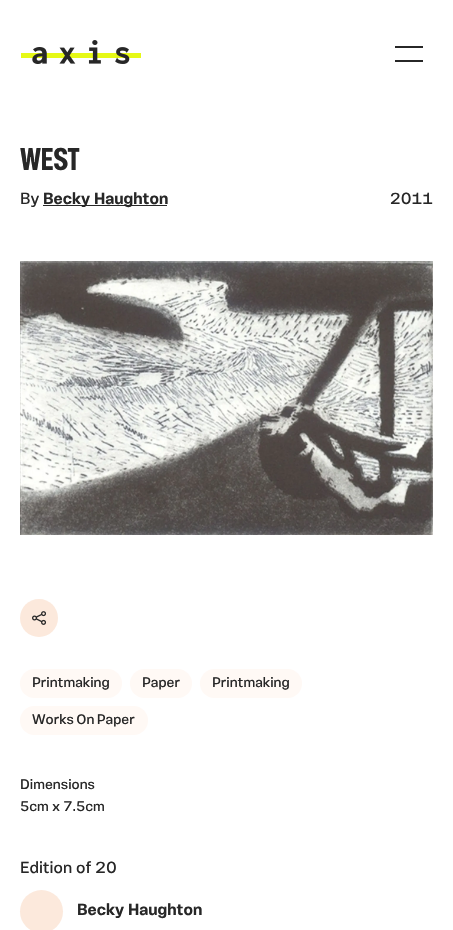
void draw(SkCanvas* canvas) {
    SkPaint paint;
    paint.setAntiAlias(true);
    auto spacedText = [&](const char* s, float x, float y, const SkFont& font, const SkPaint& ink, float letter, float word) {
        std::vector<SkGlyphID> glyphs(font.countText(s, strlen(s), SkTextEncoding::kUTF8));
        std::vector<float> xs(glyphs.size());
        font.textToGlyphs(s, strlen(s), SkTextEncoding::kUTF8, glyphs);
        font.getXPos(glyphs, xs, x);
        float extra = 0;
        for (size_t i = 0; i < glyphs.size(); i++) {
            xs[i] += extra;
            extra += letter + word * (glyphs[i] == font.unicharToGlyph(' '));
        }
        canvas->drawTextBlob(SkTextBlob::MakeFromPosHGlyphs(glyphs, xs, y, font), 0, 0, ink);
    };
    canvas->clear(0xFFFFFFFF);
    canvas->drawImageRect(SkImages::DeferredFromEncodedData(SkData::MakeFromFileName("img1.png")), SkRect::MakeXYWH(21, 40, 120, 24), SkSamplingOptions());
    paint.setColor(0xFF272727);
    canvas->drawRect(SkRect::MakeXYWH(395, 46, 28, 2), paint);
    canvas->drawRect(SkRect::MakeXYWH(395, 60, 28, 2), paint);
    SkFont font1(fontMgr->matchFamilyStyle("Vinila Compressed", SkFontStyle::Bold()), 32);
    font1.setSubpixel(true);
    spacedText("WEST", 20, 170, font1, paint, -0.5f, 0);
    SkFont font2(fontMgr->matchFamilyStyle("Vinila", SkFontStyle::Normal()), 16.25f);
    font2.setSubpixel(true);
    canvas->drawString("By", 20, 204, font2, paint);
    canvas->drawRect(SkRect::MakeXYWH(43, 205, 124, 1), paint);
    SkFont font3(fontMgr->matchFamilyStyle("Vinila", SkFontStyle::Bold()), 16.25f);
    font3.setSubpixel(true);
    canvas->drawString("Becky Haughton", 43, 204, font3, paint);
    canvas->drawString("2011", 390, 204, font2, paint);
    canvas->drawImageRect(SkImages::DeferredFromEncodedData(SkData::MakeFromFileName("img2.png")), SkRect::MakeXYWH(20, 261, 413, 274), SkSamplingOptions());
    paint.setColor(0xFFFCE9DC);
    canvas->drawCircle(39, 618, 19, paint);
    canvas->drawImageRect(SkImages::DeferredFromEncodedData(SkData::MakeFromFileName("img3.png")), SkRect::MakeXYWH(32, 611, 14, 14), SkSamplingOptions());
    paint.setColor(0xFFFFF9F5);
    canvas->drawRoundRect(SkRect::MakeXYWH(20, 669, 102, 29), 14.5f, 14.5f, paint);
    SkFont font4(fontMgr->matchFamilyStyle("Vinila", SkFontStyle::Normal()), 14);
    font4.setSubpixel(true);
    paint.setColor(0xFF272727);
    canvas->drawString("Printmaking", 32, 687, font4, paint);
    paint.setColor(0xFFFFF9F5);
    canvas->drawRoundRect(SkRect::MakeXYWH(130, 669, 62, 29), 14.5f, 14.5f, paint);
    paint.setColor(0xFF272727);
    canvas->drawString("Paper", 142, 687, font4, paint);
    paint.setColor(0xFFFFF9F5);
    canvas->drawRoundRect(SkRect::MakeXYWH(200, 669, 102, 29), 14.5f, 14.5f, paint);
    paint.setColor(0xFF272727);
    canvas->drawString("Printmaking", 212, 687, font4, paint);
    paint.setColor(0xFFFFF9F5);
    canvas->drawRoundRect(SkRect::MakeXYWH(20, 706, 128, 29), 14.5f, 14.5f, paint);
    paint.setColor(0xFF272727);
    spacedText("Works On Paper", 32, 724, font4, paint, 0, -1);
    canvas->drawString("Dimensions", 20, 789, font4, paint);
    canvas->drawString("5cm x 7.5cm", 20, 811, font4, paint);
    canvas->drawString("Edition of 20", 20, 873, font2, paint);
    paint.setColor(0xFFFCE9DC);
    canvas->drawCircle(41.5f, 911.5f, 21.5f, paint);
    paint.setColor(0xFF272727);
    canvas->drawString("Becky Haughton", 77, 915, font3, paint);
}
